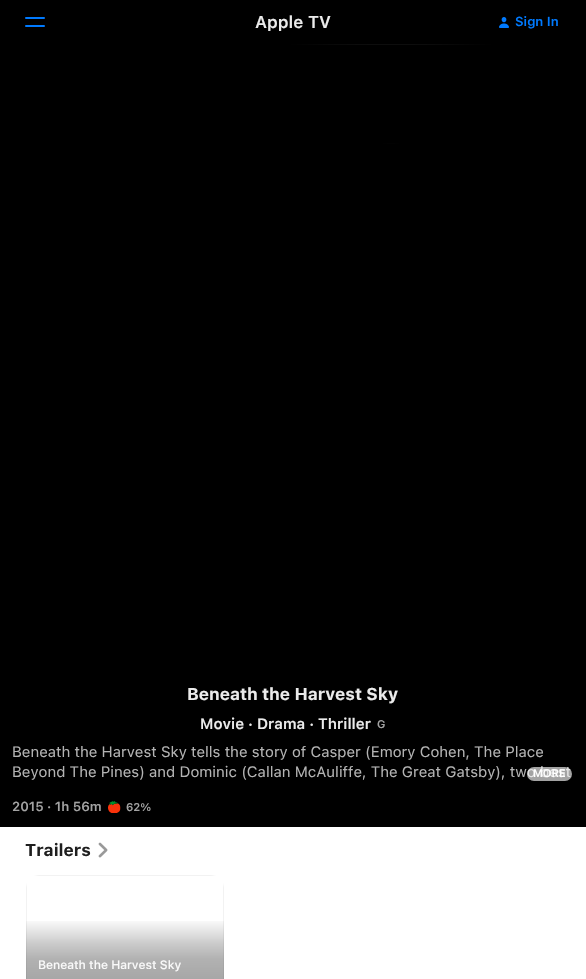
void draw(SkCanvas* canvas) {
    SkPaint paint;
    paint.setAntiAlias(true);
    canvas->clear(0xFFFFFFFF);
    paint.setColor(0xFF000000);
    canvas->drawRect(SkRect::MakeXYWH(0, 0, 586, 44), paint);
    paint.setColor(0xFF007AFF);
    canvas->drawRoundRect(SkRect::MakeXYWH(25, 17, 20, 2), 1, 1, paint);
    canvas->drawRoundRect(SkRect::MakeXYWH(25, 25, 20, 2), 1, 1, paint);
    SkFont font1(fontMgr->matchFamilyStyle("SF", SkFontStyle(600, SkFontStyle::kNormal_Width, SkFontStyle::kUpright_Slant)), 17);
    font1.setSubpixel(true);
    paint.setColor(0xFFEBEBEB);
    canvas->drawString("Apple TV", 255, 28, font1, paint);
    canvas->drawImageRect(SkImages::DeferredFromEncodedData(SkData::MakeFromFileName("img1.png")), SkRect::MakeXYWH(499, 17, 10, 11), SkSamplingOptions());
    SkFont font2(fontMgr->matchFamilyStyle("SF", SkFontStyle(600, SkFontStyle::kNormal_Width, SkFontStyle::kUpright_Slant)), 13);
    font2.setSubpixel(true);
    paint.setColor(0xFF007AFF);
    canvas->drawString("Sign In", 515, 26, font2, paint);
    paint.setColor(0xFF000000);
    canvas->drawRect(SkRect::MakeXYWH(291, 45, 200, 98), paint);
    canvas->save();
    canvas->clipRect(SkRect::MakeXYWH(0, 44, 586, 783));
    paint.setStyle(SkPaint::kStroke_Style);
    paint.setStrokeWidth(1);
    paint.setColor(0xFF0D0D0D);
    canvas->drawRect(SkRect::MakeXYWH(0.5f, 44.5f, 585, 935), paint);
    canvas->restore();
    paint.setStyle(SkPaint::kFill_Style);
    {
        const SkColor colors[] = {0x00000000, 0x0A000000, 0x26000000, 0x4D000000, 0x54000000, 0x7D000000, 0xAB000000, 0xD9000000, 0xFF000000};
        const float stops[] = {0, 0.19f, 0.36f, 0.51f, 0.53f, 0.65f, 0.77f, 0.89f, 1};
        paint.setShader(SkGradientShader::MakeRadial({391, 44}, 100, colors, stops, 9, SkTileMode::kClamp));
        paint.setAlpha(255);
    }
    canvas->drawRect(SkRect::MakeXYWH(0, 44, 586, 783), paint);
    SkFont font3(fontMgr->matchFamilyStyle("SF", SkFontStyle::Bold()), 17);
    font3.setSubpixel(true);
    paint.setShader(nullptr);
    paint.setColor(0xFFEBEBEB);
    canvas->drawString("Beneath the Harvest Sky", 187, 700, font3, paint);
    SkFont font4(fontMgr->matchFamilyStyle("SF", SkFontStyle(600, SkFontStyle::kNormal_Width, SkFontStyle::kUpright_Slant)), 15);
    font4.setSubpixel(true);
    canvas->drawString("Movie · Drama · Thriller", 200, 729, font4, paint);
    SkFont font5(fontMgr->matchFamilyStyle("SF", SkFontStyle(600, SkFontStyle::kNormal_Width, SkFontStyle::kUpright_Slant)), 11);
    font5.setSubpixel(true);
    paint.setColor(0xFFA3A3A3);
    canvas->drawString("G", 377, 728, font5, paint);
    SkFont font6(fontMgr->matchFamilyStyle("SF", SkFontStyle::Normal()), 15);
    font6.setSubpixel(true);
    paint.setColor(0xFFB3B3B3);
    canvas->drawString("Beneath the Harvest Sky tells the story of Casper (Emory Cohen, The Place", 12, 757, font6, paint);
    canvas->drawString("Beyond The Pines) and Dominic (Callan McAuliffe, The Great Gatsby), two best", 12, 777, font6, paint);
    paint.setColor(0xA3FFFFFF);
    canvas->drawRoundRect(SkRect::MakeXYWH(527, 767, 45, 14), 7, 7, paint);
    paint.setColor(0xFFFFFFFF);
    canvas->drawString("MORE", 533, 777, font5, paint);
    paint.setColor(0xFFA3A3A3);
    canvas->drawString("2015 · 1h 56m", 12, 811, font2, paint);
    canvas->drawImageRect(SkImages::DeferredFromEncodedData(SkData::MakeFromFileName("img2.png")), SkRect::MakeXYWH(108, 801, 13, 12), SkSamplingOptions());
    canvas->drawString("62%", 126, 811, font5, paint);
    paint.setColor(0xFF1F1F1F);
    canvas->drawString("Trailers", 25, 856, font3, paint);
    canvas->drawImageRect(SkImages::DeferredFromEncodedData(SkData::MakeFromFileName("img3.png")), SkRect::MakeXYWH(98, 842, 10, 16), SkSamplingOptions());
    paint.setColor(0xFFF2F2F2);
    canvas->drawPath(SkPathBuilder(SkPathFillType::kEvenOdd).moveTo(26, 888).lineTo(26, 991).lineTo(27, 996).lineTo(27, 883).close().moveTo(39, 875).lineTo(34, 876).lineTo(216, 876).lineTo(211, 875).close().moveTo(224, 888).lineTo(223, 883).lineTo(223, 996).lineTo(224, 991).close().moveTo(211, 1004).lineTo(216, 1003).lineTo(34, 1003).lineTo(39, 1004).close().detach(), paint);
    {
        const SkColor colors[] = {0x00000000, 0x21000000, 0x36000000, 0x4D000000, 0x66000000};
        const float stops[] = {0, 0.19f, 0.31f, 0.47f, 1};
        const SkPoint ends[] = {{125, 918}, {125, 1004}};
        paint.setShader(SkGradientShader::MakeLinear(ends, colors, stops, 5, SkTileMode::kClamp));
        paint.setAlpha(255);
    }
    canvas->drawRect(SkRect::MakeXYWH(26, 921, 198, 58), paint);
    SkFont font7(fontMgr->matchFamilyStyle("SF", SkFontStyle(500, SkFontStyle::kNormal_Width, SkFontStyle::kUpright_Slant)), 12);
    font7.setSubpixel(true);
    paint.setShader(nullptr);
    paint.setColor(0xFFF9F9F9);
    canvas->drawString("Beneath the Harvest Sky", 38, 969, font7, paint);
}
